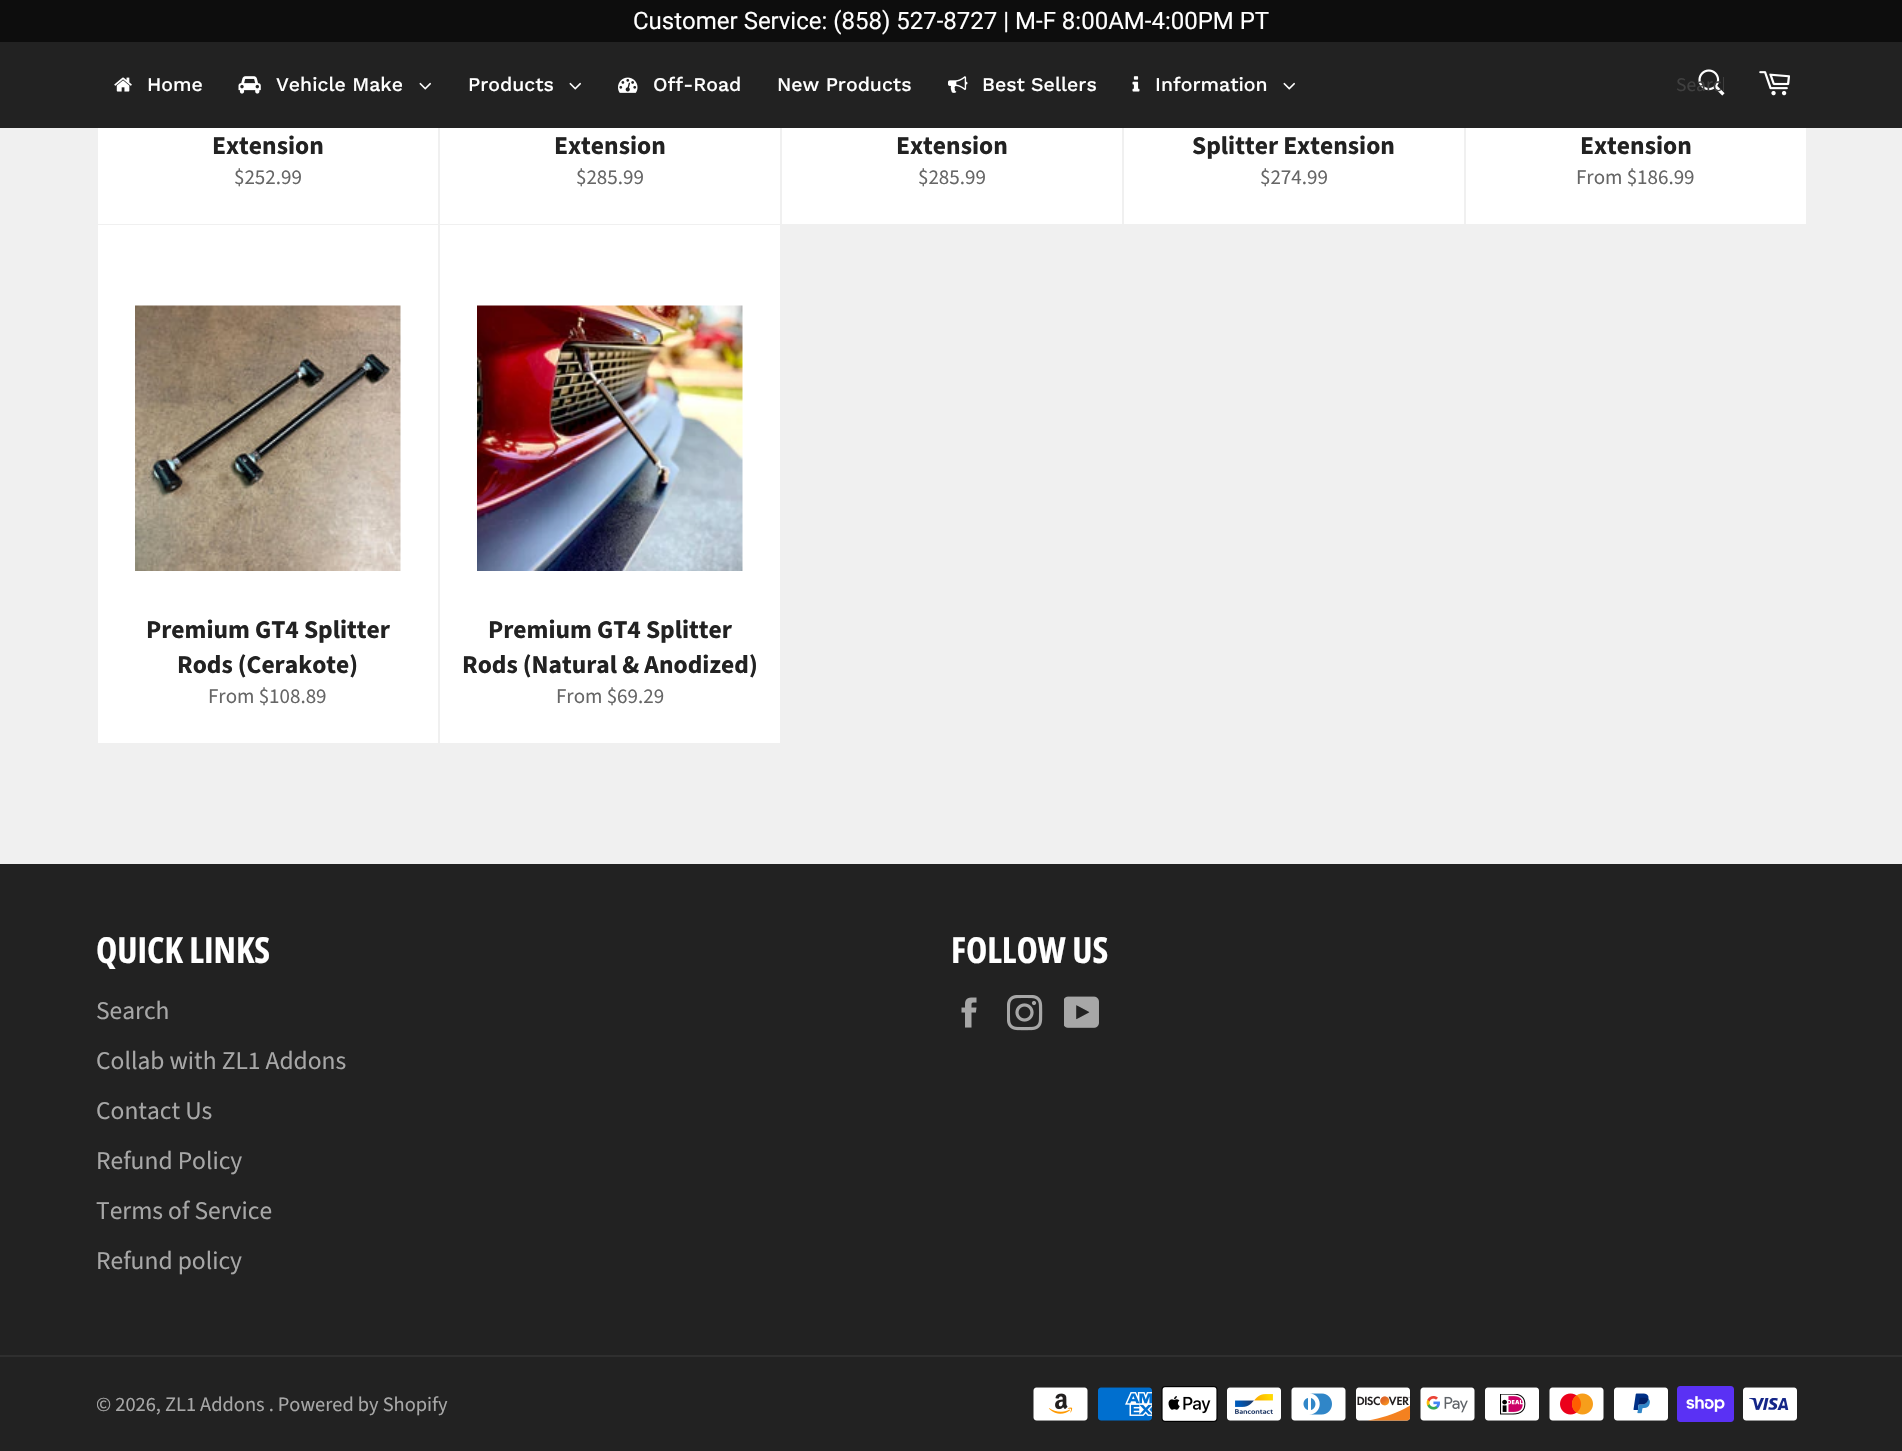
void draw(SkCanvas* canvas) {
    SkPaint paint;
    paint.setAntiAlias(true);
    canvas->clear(0xFFF0F0F0);
    paint.setColor(0xFF0D0D0D);
    canvas->drawRect(SkRect::MakeXYWH(0, 0, 1902, 42), paint);
    SkFont font1(fontMgr->matchFamilyStyle("Roboto", SkFontStyle::Normal()), 24);
    font1.setSubpixel(true);
    paint.setColor(0xFFFFFFFF);
    canvas->drawString("Customer Service: (858) 527-8727 | M-F 8:00AM-4:00PM PT", 633, 29, font1, paint);
    paint.setColor(0xFF222222);
    canvas->drawRect(SkRect::MakeXYWH(0, 42, 1902, 86), paint);
    canvas->drawImageRect(SkImages::DeferredFromEncodedData(SkData::MakeFromFileName("img1.png")), SkRect::MakeXYWH(114, 77, 18, 15), SkSamplingOptions());
    SkFont font2(fontMgr->matchFamilyStyle("Work Sans", SkFontStyle(500, SkFontStyle::kNormal_Width, SkFontStyle::kUpright_Slant)), 19.5f);
    font2.setSubpixel(true);
    paint.setColor(0xFFFFFFFF);
    canvas->drawString("Home", 147, 91, font2, paint);
    canvas->drawImageRect(SkImages::DeferredFromEncodedData(SkData::MakeFromFileName("img2.png")), SkRect::MakeXYWH(238, 76, 23, 18), SkSamplingOptions());
    canvas->drawString("Vehicle Make", 276, 91, font2, paint);
    canvas->drawImageRect(SkImages::DeferredFromEncodedData(SkData::MakeFromFileName("img3.png")), SkRect::MakeXYWH(419, 82, 12, 8), SkSamplingOptions());
    canvas->drawString("Products", 468, 91, font2, paint);
    canvas->drawImageRect(SkImages::DeferredFromEncodedData(SkData::MakeFromFileName("img3.png")), SkRect::MakeXYWH(569, 82, 12, 8), SkSamplingOptions());
    canvas->drawImageRect(SkImages::DeferredFromEncodedData(SkData::MakeFromFileName("img4.png")), SkRect::MakeXYWH(618, 77, 20, 16), SkSamplingOptions());
    canvas->drawString("Off-Road", 653, 91, font2, paint);
    canvas->drawString("New Products", 777, 91, font2, paint);
    canvas->drawImageRect(SkImages::DeferredFromEncodedData(SkData::MakeFromFileName("img5.png")), SkRect::MakeXYWH(948, 76, 20, 17), SkSamplingOptions());
    canvas->drawString("Best Sellers", 982, 91, font2, paint);
    canvas->drawImageRect(SkImages::DeferredFromEncodedData(SkData::MakeFromFileName("img6.png")), SkRect::MakeXYWH(1132, 76, 8, 16), SkSamplingOptions());
    canvas->drawString("Information", 1155, 91, font2, paint);
    canvas->drawImageRect(SkImages::DeferredFromEncodedData(SkData::MakeFromFileName("img3.png")), SkRect::MakeXYWH(1283, 82, 12, 8), SkSamplingOptions());
    canvas->drawImageRect(SkImages::DeferredFromEncodedData(SkData::MakeFromFileName("img7.png")), SkRect::MakeXYWH(1698, 69, 27, 27), SkSamplingOptions());
    canvas->save();
    canvas->clipRect(SkRect::MakeXYWH(1676, 72, 48, 27));
    SkFont font3(fontMgr->matchFamilyStyle("Source Sans Pro", SkFontStyle::Normal()), 19.5f);
    font3.setSubpixel(true);
    paint.setColor(0xFF404040);
    canvas->drawString("Search", 1676, 91, font3, paint);
    canvas->restore();
    canvas->drawImageRect(SkImages::DeferredFromEncodedData(SkData::MakeFromFileName("img8.png")), SkRect::MakeXYWH(1759, 71, 31, 25), SkSamplingOptions());
    paint.setColor(0xFFFFFFFF);
    canvas->drawRect(SkRect::MakeXYWH(98, 128, 340, 96), paint);
    SkFont font4(fontMgr->matchFamilyStyle("Source Sans Pro", SkFontStyle::Bold()), 25.5f);
    font4.setSubpixel(true);
    paint.setColor(0xFF222222);
    canvas->drawString("Extension", 212, 154, font4, paint);
    SkFont font5(fontMgr->matchFamilyStyle("Source Sans Pro", SkFontStyle::Normal()), 21);
    font5.setSubpixel(true);
    paint.setColor(0xFF666666);
    canvas->drawString("$252.99", 234, 184, font5, paint);
    paint.setColor(0xFFFFFFFF);
    canvas->drawRect(SkRect::MakeXYWH(440, 128, 340, 96), paint);
    paint.setColor(0xFF222222);
    canvas->drawString("Extension", 554, 154, font4, paint);
    paint.setColor(0xFF666666);
    canvas->drawString("$285.99", 576, 184, font5, paint);
    paint.setColor(0xFFFFFFFF);
    canvas->drawRect(SkRect::MakeXYWH(782, 128, 340, 96), paint);
    paint.setColor(0xFF222222);
    canvas->drawString("Extension", 896, 154, font4, paint);
    paint.setColor(0xFF666666);
    canvas->drawString("$285.99", 918, 184, font5, paint);
    paint.setColor(0xFFFFFFFF);
    canvas->drawRect(SkRect::MakeXYWH(1124, 128, 340, 96), paint);
    paint.setColor(0xFF222222);
    canvas->drawString("Splitter Extension", 1192, 154, font4, paint);
    paint.setColor(0xFF666666);
    canvas->drawString("$274.99", 1260, 184, font5, paint);
    paint.setColor(0xFFFFFFFF);
    canvas->drawRect(SkRect::MakeXYWH(1466, 128, 340, 96), paint);
    paint.setColor(0xFF222222);
    canvas->drawString("Extension", 1580, 154, font4, paint);
    paint.setColor(0xFF666666);
    canvas->drawString("From $186.99", 1576, 184, font5, paint);
    paint.setColor(0xFFFFFFFF);
    canvas->drawRect(SkRect::MakeXYWH(98, 225, 340, 518), paint);
    canvas->drawImageRect(SkImages::DeferredFromEncodedData(SkData::MakeFromFileName("img9.png")), SkRect::MakeXYWH(135, 305, 266, 266), SkSamplingOptions());
    paint.setColor(0xFF222222);
    canvas->drawString("Premium GT4 Splitter", 146, 638, font4, paint);
    canvas->drawString("Rods (Cerakote)", 177, 673, font4, paint);
    paint.setColor(0xFF666666);
    canvas->drawString("From $108.89", 208, 703, font5, paint);
    paint.setColor(0xFFFFFFFF);
    canvas->drawRect(SkRect::MakeXYWH(440, 225, 340, 518), paint);
    canvas->drawImageRect(SkImages::DeferredFromEncodedData(SkData::MakeFromFileName("img10.png")), SkRect::MakeXYWH(477, 305, 266, 266), SkSamplingOptions());
    paint.setColor(0xFF222222);
    canvas->drawString("Premium GT4 Splitter", 488, 638, font4, paint);
    canvas->drawString("Rods (Natural & Anodized)", 462, 673, font4, paint);
    paint.setColor(0xFF666666);
    canvas->drawString("From $69.29", 556, 703, font5, paint);
    paint.setColor(0xFF222222);
    canvas->drawRect(SkRect::MakeXYWH(0, 864, 1902, 587), paint);
    SkFont font6(fontMgr->matchFamilyStyle("Open Sans Condensed", SkFontStyle::Bold()), 36);
    font6.setSubpixel(true);
    paint.setColor(0xFFFFFFFF);
    canvas->drawString("QUICK LINKS", 96, 963, font6, paint);
    SkFont font7(fontMgr->matchFamilyStyle("Source Sans Pro", SkFontStyle::Normal()), 25.5f);
    font7.setSubpixel(true);
    paint.setColor(0xFFA7A7A7);
    canvas->drawString("Search", 96, 1019, font7, paint);
    canvas->drawString("Collab with ZL1 Addons", 96, 1069, font7, paint);
    canvas->drawString("Contact Us", 96, 1119, font7, paint);
    canvas->drawString("Refund Policy", 96, 1169, font7, paint);
    canvas->drawString("Terms of Service", 96, 1219, font7, paint);
    canvas->drawString("Refund policy", 96, 1269, font7, paint);
    paint.setColor(0xFFFFFFFF);
    canvas->drawString("FOLLOW US", 951, 963, font6, paint);
    canvas->drawImageRect(SkImages::DeferredFromEncodedData(SkData::MakeFromFileName("img11.png")), SkRect::MakeXYWH(961, 997, 16, 31), SkSamplingOptions());
    canvas->drawImageRect(SkImages::DeferredFromEncodedData(SkData::MakeFromFileName("img12.png")), SkRect::MakeXYWH(1007, 995, 36, 36), SkSamplingOptions());
    canvas->drawImageRect(SkImages::DeferredFromEncodedData(SkData::MakeFromFileName("img13.png")), SkRect::MakeXYWH(1064, 996, 35, 32), SkSamplingOptions());
    paint.setColor(0xFF2F2F2F);
    canvas->drawRect(SkRect::MakeXYWH(0, 1355, 1902, 2), paint);
    SkFont font8(fontMgr->matchFamilyStyle("Source Sans Pro", SkFontStyle::Normal()), 20.4f);
    font8.setSubpixel(true);
    paint.setColor(0xFFA7A7A7);
    canvas->drawString("© 2026, ZL1 Addons . Powered by Shopify", 96, 1411, font8, paint);
    canvas->drawImageRect(SkImages::DeferredFromEncodedData(SkData::MakeFromFileName("img14.png")), SkRect::MakeXYWH(1033, 1387, 55, 34), SkSamplingOptions());
    canvas->drawImageRect(SkImages::DeferredFromEncodedData(SkData::MakeFromFileName("img15.png")), SkRect::MakeXYWH(1098, 1387, 54, 34), SkSamplingOptions());
    canvas->drawImageRect(SkImages::DeferredFromEncodedData(SkData::MakeFromFileName("img16.png")), SkRect::MakeXYWH(1161, 1386, 57, 36), SkSamplingOptions());
    canvas->drawImageRect(SkImages::DeferredFromEncodedData(SkData::MakeFromFileName("img17.png")), SkRect::MakeXYWH(1227, 1387, 54, 34), SkSamplingOptions());
    canvas->drawImageRect(SkImages::DeferredFromEncodedData(SkData::MakeFromFileName("img18.png")), SkRect::MakeXYWH(1291, 1387, 55, 34), SkSamplingOptions());
    canvas->drawImageRect(SkImages::DeferredFromEncodedData(SkData::MakeFromFileName("img19.png")), SkRect::MakeXYWH(1356, 1387, 55, 34), SkSamplingOptions());
    canvas->drawImageRect(SkImages::DeferredFromEncodedData(SkData::MakeFromFileName("img20.png")), SkRect::MakeXYWH(1420, 1387, 55, 34), SkSamplingOptions());
    canvas->drawImageRect(SkImages::DeferredFromEncodedData(SkData::MakeFromFileName("img21.png")), SkRect::MakeXYWH(1485, 1387, 54, 34), SkSamplingOptions());
    canvas->drawImageRect(SkImages::DeferredFromEncodedData(SkData::MakeFromFileName("img22.png")), SkRect::MakeXYWH(1549, 1387, 55, 34), SkSamplingOptions());
    canvas->drawImageRect(SkImages::DeferredFromEncodedData(SkData::MakeFromFileName("img23.png")), SkRect::MakeXYWH(1614, 1387, 54, 34), SkSamplingOptions());
    canvas->drawImageRect(SkImages::DeferredFromEncodedData(SkData::MakeFromFileName("img24.png")), SkRect::MakeXYWH(1677, 1386, 57, 36), SkSamplingOptions());
    canvas->drawImageRect(SkImages::DeferredFromEncodedData(SkData::MakeFromFileName("img25.png")), SkRect::MakeXYWH(1743, 1387, 54, 34), SkSamplingOptions());
}
